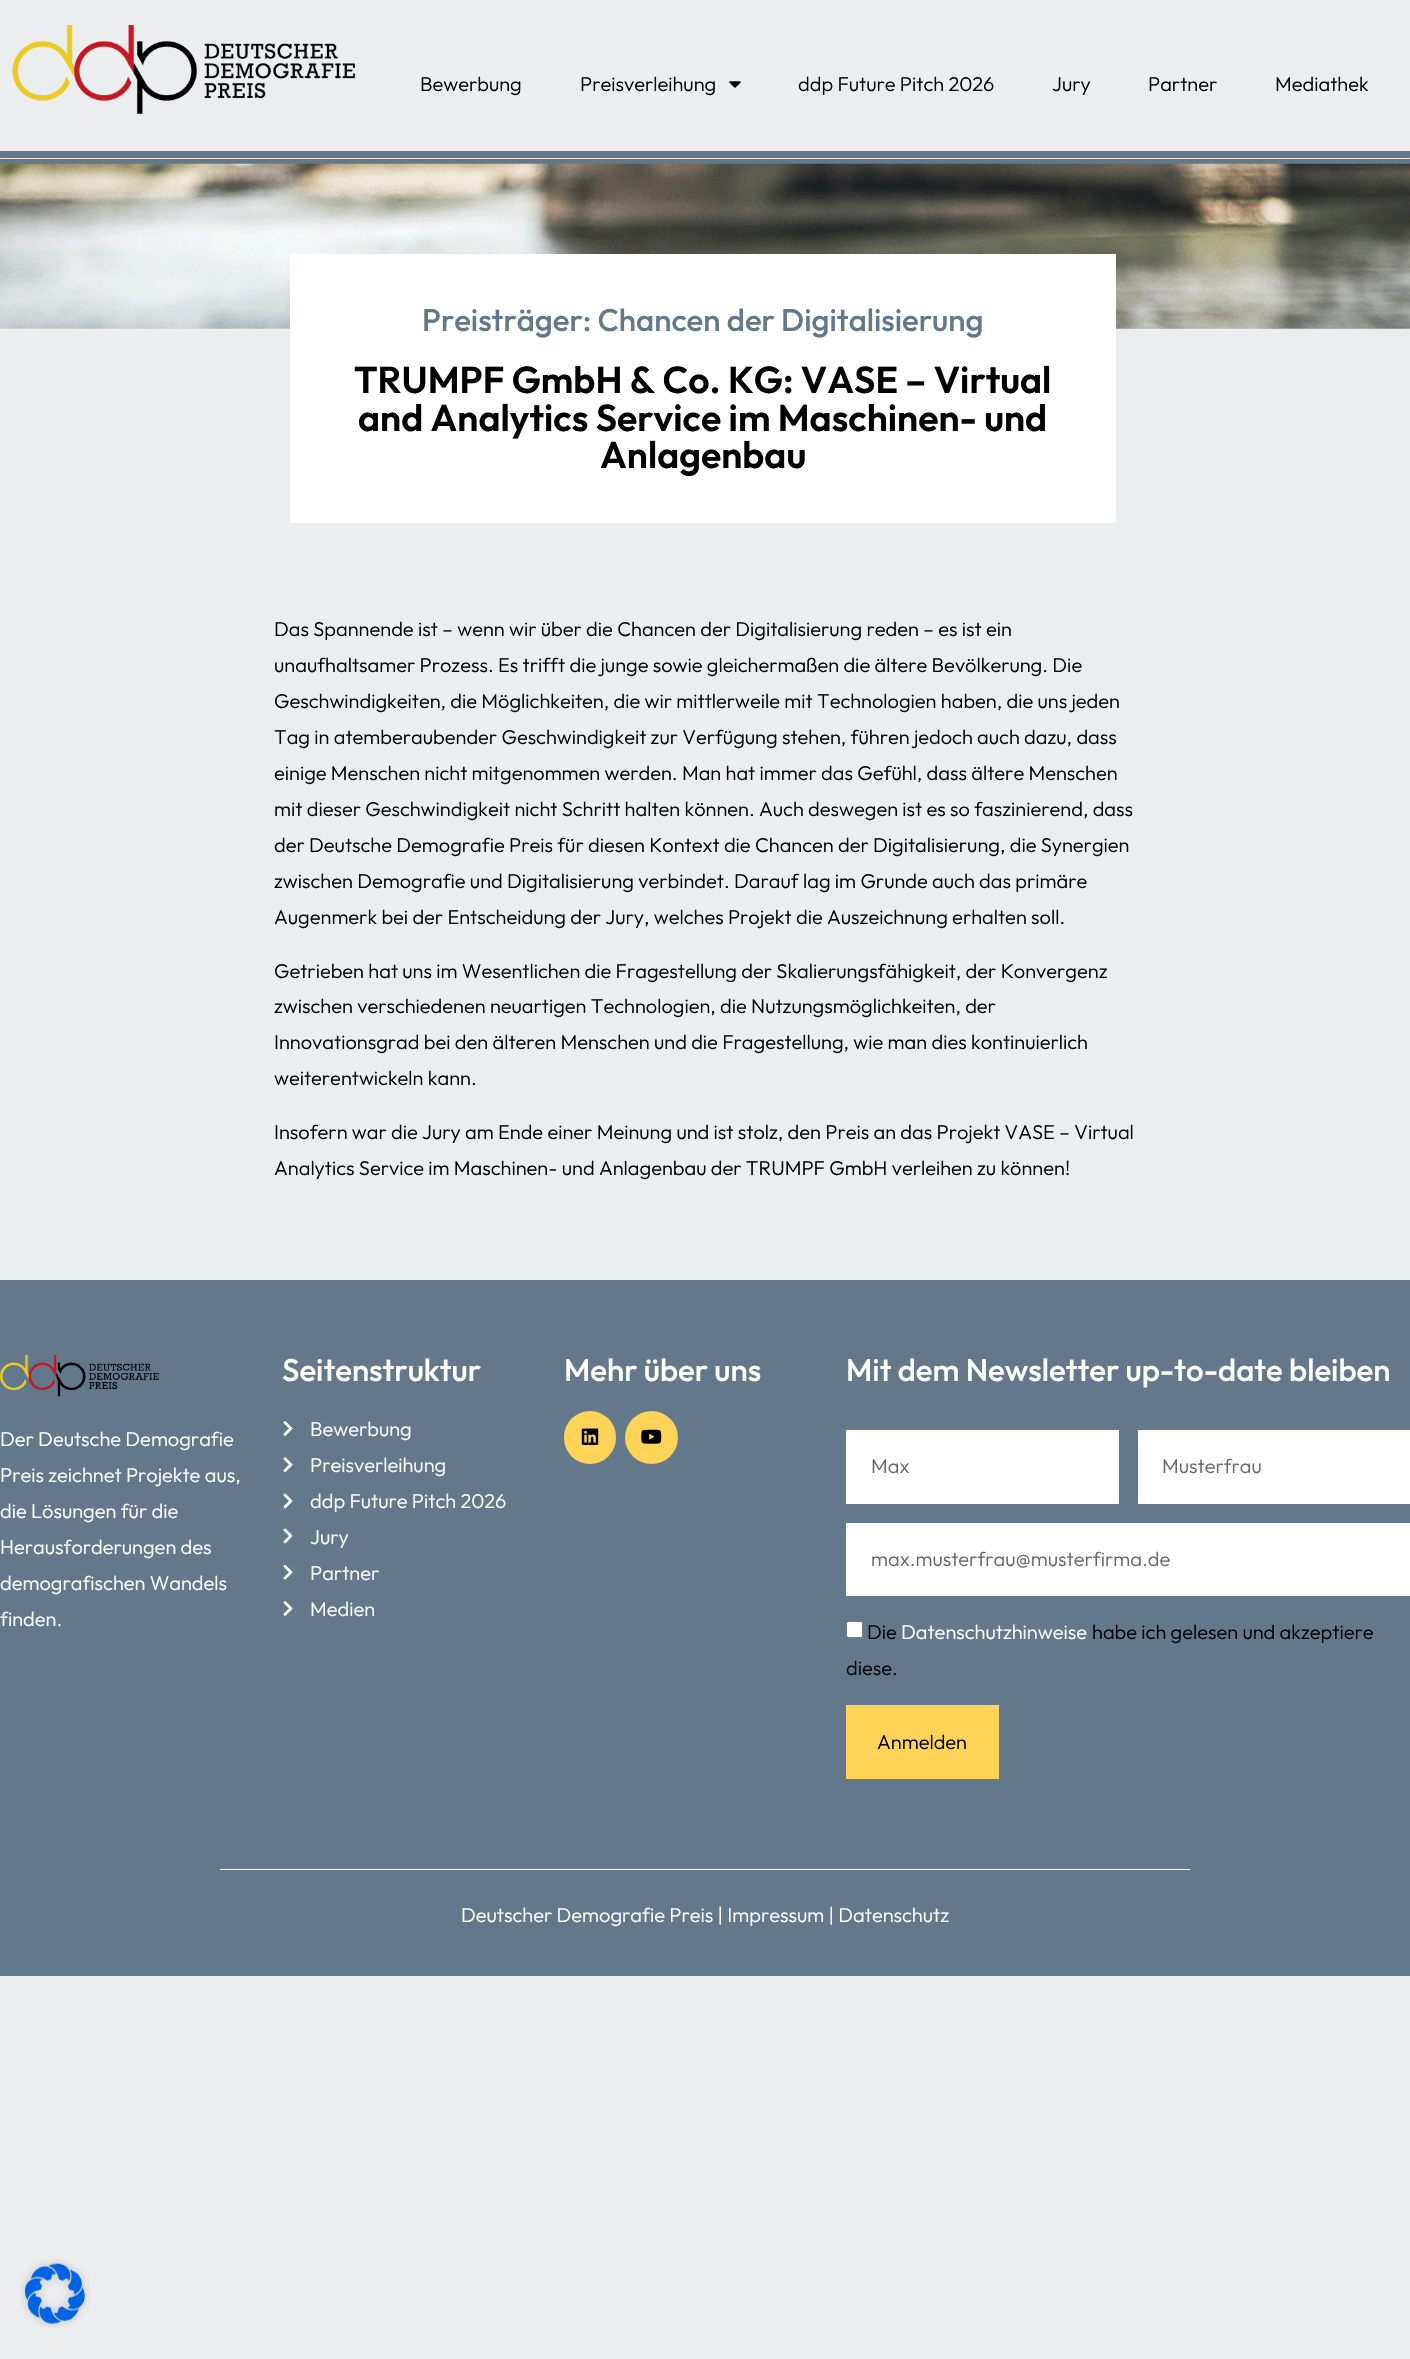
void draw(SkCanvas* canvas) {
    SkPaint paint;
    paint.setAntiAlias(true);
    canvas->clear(0xFFECEDEE);
    canvas->drawImageRect(SkImages::DeferredFromEncodedData(SkData::MakeFromFileName("img1.png")), SkRect::MakeXYWH(12, 25, 343, 89), SkSamplingOptions());
    SkFont font1(fontMgr->matchFamilyStyle("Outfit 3", SkFontStyle(100, SkFontStyle::kNormal_Width, SkFontStyle::kUpright_Slant)), 20);
    font1.setSubpixel(true);
    paint.setColor(0xFF000000);
    canvas->drawString("Bewerbung", 420, 91, font1, paint);
    canvas->drawString("Preisverleihung", 580, 91, font1, paint);
    canvas->drawImageRect(SkImages::DeferredFromEncodedData(SkData::MakeFromFileName("img2.png")), SkRect::MakeXYWH(729, 81, 12, 7), SkSamplingOptions());
    canvas->drawString("ddp Future Pitch 2026", 798, 91, font1, paint);
    canvas->drawString("Jury", 1052, 91, font1, paint);
    canvas->drawString("Partner", 1148, 91, font1, paint);
    canvas->drawString("Mediathek", 1275, 91, font1, paint);
    paint.setColor(0xFF64788C);
    canvas->drawRect(SkRect::MakeXYWH(0, 151, 1410, 13), paint);
    paint.setColor(0xFFEBE6E6);
    canvas->drawRoundRect(SkRect::MakeXYWH(0, 158, 1410, 1), 0.5f, 0.5f, paint);
    canvas->drawImageRect(SkImages::DeferredFromEncodedData(SkData::MakeFromFileName("img3.png")), SkRect::MakeXYWH(0, 163, 1410, 166), SkSamplingOptions());
    paint.setColor(0xFFFFFFFF);
    canvas->drawRect(SkRect::MakeXYWH(290, 254, 826, 269), paint);
    SkFont font2(fontMgr->matchFamilyStyle("Outfit", SkFontStyle(100, SkFontStyle::kNormal_Width, SkFontStyle::kUpright_Slant)), 31.25f);
    font2.setSubpixel(true);
    paint.setColor(0xFF64788C);
    canvas->drawString("Preisträger: Chancen der Digitalisierung", 422, 331, font2, paint);
    SkFont font3(fontMgr->matchFamilyStyle("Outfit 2", SkFontStyle(100, SkFontStyle::kNormal_Width, SkFontStyle::kUpright_Slant)), 37.5f);
    font3.setSubpixel(true);
    paint.setColor(0xFF000000);
    canvas->drawString("TRUMPF GmbH & Co. KG: VASE – Virtual", 354, 393, font3, paint);
    canvas->drawString("and Analytics Service im Maschinen- und", 358, 431, font3, paint);
    canvas->drawString("Anlagenbau", 600, 468, font3, paint);
    canvas->drawString("Das Spannende ist – wenn wir über die Chancen der Digitalisierung reden – es ist ein", 274, 636, font1, paint);
    canvas->drawString("unaufhaltsamer Prozess. Es trifft die junge sowie gleichermaßen die ältere Bevölkerung. Die", 274, 672, font1, paint);
    canvas->drawString("Geschwindigkeiten, die Möglichkeiten, die wir mittlerweile mit Technologien haben, die uns jeden", 274, 708, font1, paint);
    canvas->drawString("Tag in atemberaubender Geschwindigkeit zur Verfügung stehen, führen jedoch auch dazu, dass", 274, 744, font1, paint);
    canvas->drawString("einige Menschen nicht mitgenommen werden. Man hat immer das Gefühl, dass ältere Menschen", 274, 780, font1, paint);
    canvas->drawString("mit dieser Geschwindigkeit nicht Schritt halten können. Auch deswegen ist es so faszinierend, dass", 274, 816, font1, paint);
    canvas->drawString("der Deutsche Demografie Preis für diesen Kontext die Chancen der Digitalisierung, die Synergien", 274, 852, font1, paint);
    canvas->drawString("zwischen Demografie und Digitalisierung verbindet. Darauf lag im Grunde auch das primäre", 274, 888, font1, paint);
    canvas->drawString("Augenmerk bei der Entscheidung der Jury, welches Projekt die Auszeichnung erhalten soll.", 274, 924, font1, paint);
    canvas->drawString("Getrieben hat uns im Wesentlichen die Fragestellung der Skalierungsfähigkeit, der Konvergenz", 274, 978, font1, paint);
    canvas->drawString("zwischen verschiedenen neuartigen Technologien, die Nutzungsmöglichkeiten, der", 274, 1013, font1, paint);
    canvas->drawString("Innovationsgrad bei den älteren Menschen und die Fragestellung, wie man dies kontinuierlich", 274, 1049, font1, paint);
    canvas->drawString("weiterentwickeln kann.", 274, 1085, font1, paint);
    canvas->drawString("Insofern war die Jury am Ende einer Meinung und ist stolz, den Preis an das Projekt VASE – Virtual", 274, 1139, font1, paint);
    canvas->drawString("Analytics Service im Maschinen- und Anlagenbau der TRUMPF GmbH verleihen zu können!", 274, 1175, font1, paint);
    paint.setColor(0xFF64788C);
    canvas->drawRect(SkRect::MakeXYWH(0, 1280, 1410, 696), paint);
    canvas->drawImageRect(SkImages::DeferredFromEncodedData(SkData::MakeFromFileName("img4.png")), SkRect::MakeXYWH(0, 1355, 159, 42), SkSamplingOptions());
    paint.setColor(0xFFFFFFFF);
    canvas->drawString("Der Deutsche Demografie", 0, 1446, font1, paint);
    canvas->drawString("Preis zeichnet Projekte aus,", 0, 1482, font1, paint);
    canvas->drawString("die Lösungen für die", 0, 1518, font1, paint);
    canvas->drawString("Herausforderungen des", 0, 1554, font1, paint);
    canvas->drawString("demografischen Wandels", 0, 1590, font1, paint);
    canvas->drawString("finden.", 0, 1626, font1, paint);
    canvas->drawString("Seitenstruktur", 282, 1381, font2, paint);
    canvas->drawImageRect(SkImages::DeferredFromEncodedData(SkData::MakeFromFileName("img5.png")), SkRect::MakeXYWH(283, 1421, 10, 15), SkSamplingOptions());
    canvas->drawString("Bewerbung", 310, 1436, font1, paint);
    canvas->drawImageRect(SkImages::DeferredFromEncodedData(SkData::MakeFromFileName("img6.png")), SkRect::MakeXYWH(283, 1457, 10, 16), SkSamplingOptions());
    canvas->drawString("Preisverleihung", 310, 1472, font1, paint);
    canvas->drawImageRect(SkImages::DeferredFromEncodedData(SkData::MakeFromFileName("img7.png")), SkRect::MakeXYWH(283, 1493, 10, 16), SkSamplingOptions());
    canvas->drawString("ddp Future Pitch 2026", 310, 1508, font1, paint);
    canvas->drawImageRect(SkImages::DeferredFromEncodedData(SkData::MakeFromFileName("img7.png")), SkRect::MakeXYWH(283, 1528, 10, 16), SkSamplingOptions());
    canvas->drawString("Jury", 310, 1544, font1, paint);
    canvas->drawImageRect(SkImages::DeferredFromEncodedData(SkData::MakeFromFileName("img8.png")), SkRect::MakeXYWH(283, 1564, 10, 16), SkSamplingOptions());
    canvas->drawString("Partner", 310, 1580, font1, paint);
    canvas->drawImageRect(SkImages::DeferredFromEncodedData(SkData::MakeFromFileName("img5.png")), SkRect::MakeXYWH(283, 1601, 10, 15), SkSamplingOptions());
    canvas->drawString("Medien", 310, 1616, font1, paint);
    canvas->drawString("Mehr über uns", 564, 1381, font2, paint);
    paint.setColor(0xFFFED357);
    canvas->drawRoundRect(SkRect::MakeXYWH(564, 1411, 52, 53), 26, 26, paint);
    canvas->drawImageRect(SkImages::DeferredFromEncodedData(SkData::MakeFromFileName("img9.png")), SkRect::MakeXYWH(581, 1428, 18, 17), SkSamplingOptions());
    canvas->drawCircle(651.5f, 1437.5f, 26.5f, paint);
    canvas->drawImageRect(SkImages::DeferredFromEncodedData(SkData::MakeFromFileName("img10.png")), SkRect::MakeXYWH(641, 1429, 21, 15), SkSamplingOptions());
    paint.setColor(0xFFFFFFFF);
    canvas->drawString("Mit dem Newsletter up-to-date bleiben", 846, 1381, font2, paint);
    canvas->drawRect(SkRect::MakeXYWH(846, 1430, 273, 74), paint);
    paint.setColor(0xFF666666);
    canvas->drawString("Max", 871, 1473, font1, paint);
    paint.setColor(0xFFFFFFFF);
    canvas->drawRect(SkRect::MakeXYWH(1138, 1430, 272, 74), paint);
    paint.setColor(0xFF666666);
    canvas->drawString("Musterfrau", 1162, 1473, font1, paint);
    paint.setColor(0xFFFFFFFF);
    canvas->drawRect(SkRect::MakeXYWH(846, 1523, 564, 73), paint);
    paint.setColor(0xFF666666);
    canvas->drawString("max.musterfrau@musterfirma.de", 871, 1566, font1, paint);
    paint.setColor(0xFFFFFFFF);
    canvas->drawRoundRect(SkRect::MakeXYWH(846.5f, 1621.5f, 16, 16), 2, 2, paint);
    paint.setStyle(SkPaint::kStroke_Style);
    paint.setStrokeWidth(1);
    paint.setColor(0xFF767676);
    canvas->drawRoundRect(SkRect::MakeXYWH(846.5f, 1621.5f, 16, 16), 2, 2, paint);
    paint.setStyle(SkPaint::kFill_Style);
    paint.setColor(0xFF000000);
    canvas->drawString("Die", 867, 1639, font1, paint);
    paint.setColor(0xFFFFFFFF);
    canvas->drawString("Datenschutzhinweise", 901, 1639, font1, paint);
    paint.setColor(0xFF000000);
    canvas->drawString("habe ich gelesen und akzeptiere", 1092, 1639, font1, paint);
    canvas->drawString("diese.", 846, 1675, font1, paint);
    paint.setColor(0xFFFED357);
    canvas->drawRect(SkRect::MakeXYWH(846, 1705, 153, 74), paint);
    paint.setColor(0xFF000000);
    canvas->drawString("Anmelden", 877, 1749, font1, paint);
    paint.setColor(0xFFFFFFFF);
    canvas->drawRect(SkRect::MakeXYWH(220, 1869, 970, 1), paint);
    canvas->drawString("Deutscher Demografie Preis | Impressum | Datenschutz", 461, 1922, font1, paint);
    canvas->drawImageRect(SkImages::DeferredFromEncodedData(SkData::MakeFromFileName("img11.png")), SkRect::MakeXYWH(20, 2259, 70, 69), SkSamplingOptions());
}
